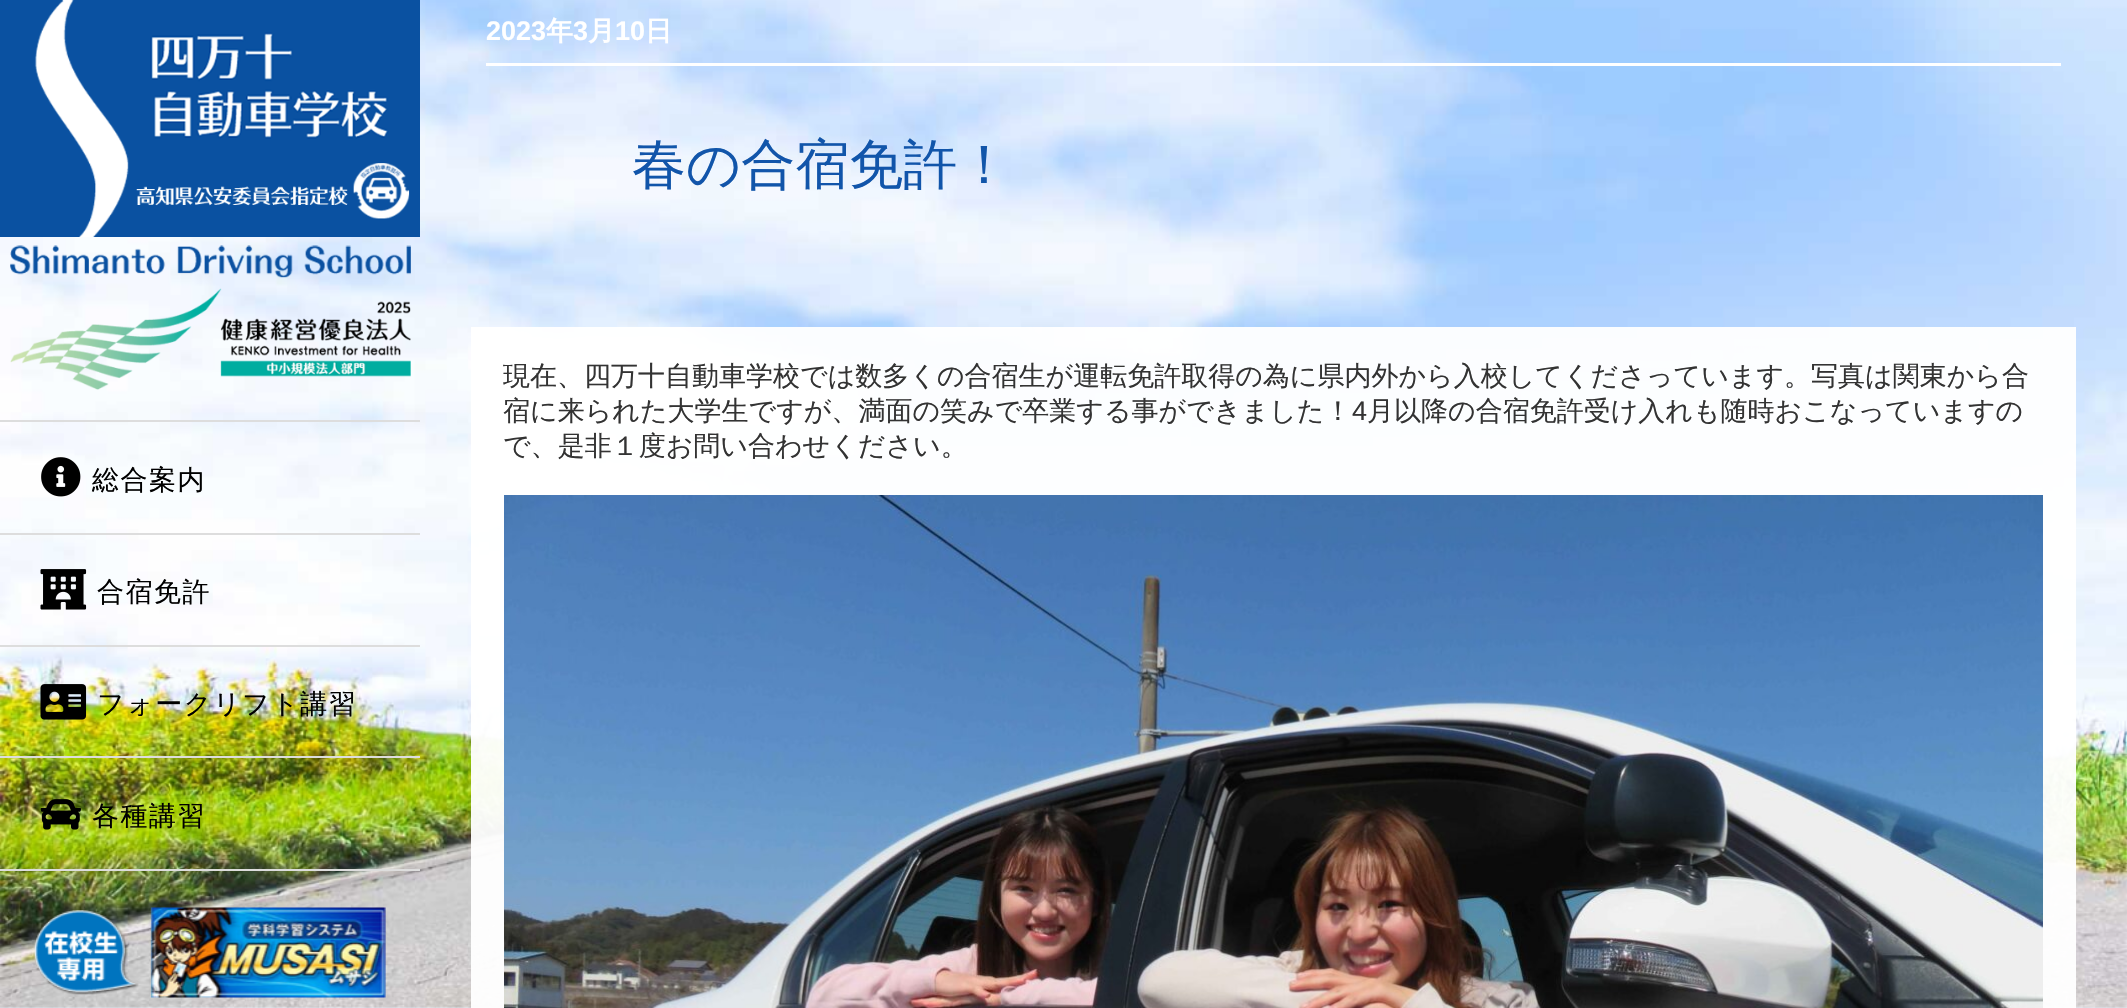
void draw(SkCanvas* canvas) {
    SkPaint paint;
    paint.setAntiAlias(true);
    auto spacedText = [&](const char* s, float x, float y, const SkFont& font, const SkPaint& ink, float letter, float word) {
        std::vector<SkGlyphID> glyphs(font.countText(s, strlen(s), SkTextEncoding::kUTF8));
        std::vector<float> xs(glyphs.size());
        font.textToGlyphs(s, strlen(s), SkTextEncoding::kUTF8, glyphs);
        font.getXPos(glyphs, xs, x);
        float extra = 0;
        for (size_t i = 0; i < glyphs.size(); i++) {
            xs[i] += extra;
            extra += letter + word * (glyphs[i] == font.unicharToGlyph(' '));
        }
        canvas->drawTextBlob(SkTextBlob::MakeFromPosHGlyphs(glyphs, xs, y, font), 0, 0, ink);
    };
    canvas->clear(0xFFDDEEFF);
    canvas->drawImageRect(SkImages::DeferredFromEncodedData(SkData::MakeFromFileName("img1.png")), SkRect::MakeXYWH(0, 0, 2127, 1008), SkSamplingOptions());
    paint.setColor(0xFFFFFFFF);
    canvas->drawRect(SkRect::MakeXYWH(486, 63, 1575, 3), paint);
    SkFont font1(fontMgr->matchFamilyStyle("Liberation Sans", SkFontStyle::Bold()), 27);
    font1.setSubpixel(true);
    canvas->drawString("2023", 486, 40, font1, paint);
    SkFont font2(fontMgr->matchFamilyStyle("WenQuanYi Zen Hei", SkFontStyle::Bold()), 27);
    font2.setSubpixel(true);
    canvas->drawString("年", 546, 40, font2, paint);
    canvas->drawString("3", 573, 40, font1, paint);
    canvas->drawString("月", 588, 40, font2, paint);
    canvas->drawString("10", 615, 40, font1, paint);
    canvas->drawString("日", 645, 40, font2, paint);
    SkFont font3(fontMgr->matchFamilyStyle("WenQuanYi Zen Hei", SkFontStyle(500, SkFontStyle::kNormal_Width, SkFontStyle::kUpright_Slant)), 54);
    font3.setSubpixel(true);
    paint.setColor(0xFF1155AA);
    canvas->drawString("春の合宿免許！", 632, 183, font3, paint);
    paint.setColor(0xF2FFFFFF);
    canvas->drawRect(SkRect::MakeXYWH(471, 327, 1605, 681), paint);
    SkFont font4(fontMgr->matchFamilyStyle("WenQuanYi Zen Hei", SkFontStyle(500, SkFontStyle::kNormal_Width, SkFontStyle::kUpright_Slant)), 27);
    font4.setSubpixel(true);
    paint.setColor(0xFF333333);
    canvas->drawString("現在、四万十自動車学校では数多くの合宿生が運転免許取得の為に県内外から入校してくださっています。写真は関東から合", 503, 385, font4, paint);
    canvas->drawString("宿に来られた大学生ですが、満面の笑みで卒業する事ができました！", 503, 420, font4, paint);
    SkFont font5(fontMgr->matchFamilyStyle("Liberation Sans", SkFontStyle::Normal()), 27);
    font5.setSubpixel(true);
    canvas->drawString("4", 1352, 420, font5, paint);
    canvas->drawString("月以降の合宿免許受け入れも随時おこなっていますの", 1367, 420, font4, paint);
    canvas->drawString("で、是非１度お問い合わせください。", 503, 455, font4, paint);
    canvas->drawImageRect(SkImages::DeferredFromEncodedData(SkData::MakeFromFileName("img2.png")), SkRect::MakeXYWH(504, 495, 1539, 513), SkSamplingOptions());
    canvas->drawImageRect(SkImages::DeferredFromEncodedData(SkData::MakeFromFileName("img3.png")), SkRect::MakeXYWH(0, 0, 420, 390), SkSamplingOptions());
    paint.setColor(0xFFDDDDDD);
    canvas->drawRect(SkRect::MakeXYWH(0, 420, 420, 2), paint);
    canvas->drawImageRect(SkImages::DeferredFromEncodedData(SkData::MakeFromFileName("img4.png")), SkRect::MakeXYWH(41, 457, 40, 40), SkSamplingOptions());
    paint.setColor(0xFF000000);
    spacedText("総合案内", 92, 489, font4, paint, 1.5f, 0);
    paint.setColor(0xFFDDDDDD);
    canvas->drawRect(SkRect::MakeXYWH(0, 533, 420, 2), paint);
    canvas->drawImageRect(SkImages::DeferredFromEncodedData(SkData::MakeFromFileName("img5.png")), SkRect::MakeXYWH(40, 569, 47, 41), SkSamplingOptions());
    paint.setColor(0xFF000000);
    spacedText("合宿免許", 97, 601, font4, paint, 1.5f, 0);
    paint.setColor(0xFFDDDDDD);
    canvas->drawRect(SkRect::MakeXYWH(0, 645, 420, 2), paint);
    canvas->drawImageRect(SkImages::DeferredFromEncodedData(SkData::MakeFromFileName("img6.png")), SkRect::MakeXYWH(40, 684, 47, 36), SkSamplingOptions());
    paint.setColor(0xFF000000);
    spacedText("フォークリフト講習", 97, 713, font4, paint, 1.5f, 0);
    paint.setColor(0xFFDDDDDD);
    canvas->drawRect(SkRect::MakeXYWH(0, 756, 420, 2), paint);
    canvas->drawImageRect(SkImages::DeferredFromEncodedData(SkData::MakeFromFileName("img7.png")), SkRect::MakeXYWH(40, 799, 41, 31), SkSamplingOptions());
    paint.setColor(0xFF000000);
    spacedText("各種講習", 92, 825, font4, paint, 1.5f, 0);
    paint.setColor(0xFFDDDDDD);
    canvas->drawRect(SkRect::MakeXYWH(0, 869, 420, 2), paint);
    canvas->drawImageRect(SkImages::DeferredFromEncodedData(SkData::MakeFromFileName("img8.png")), SkRect::MakeXYWH(34, 907, 352, 91), SkSamplingOptions());
}
